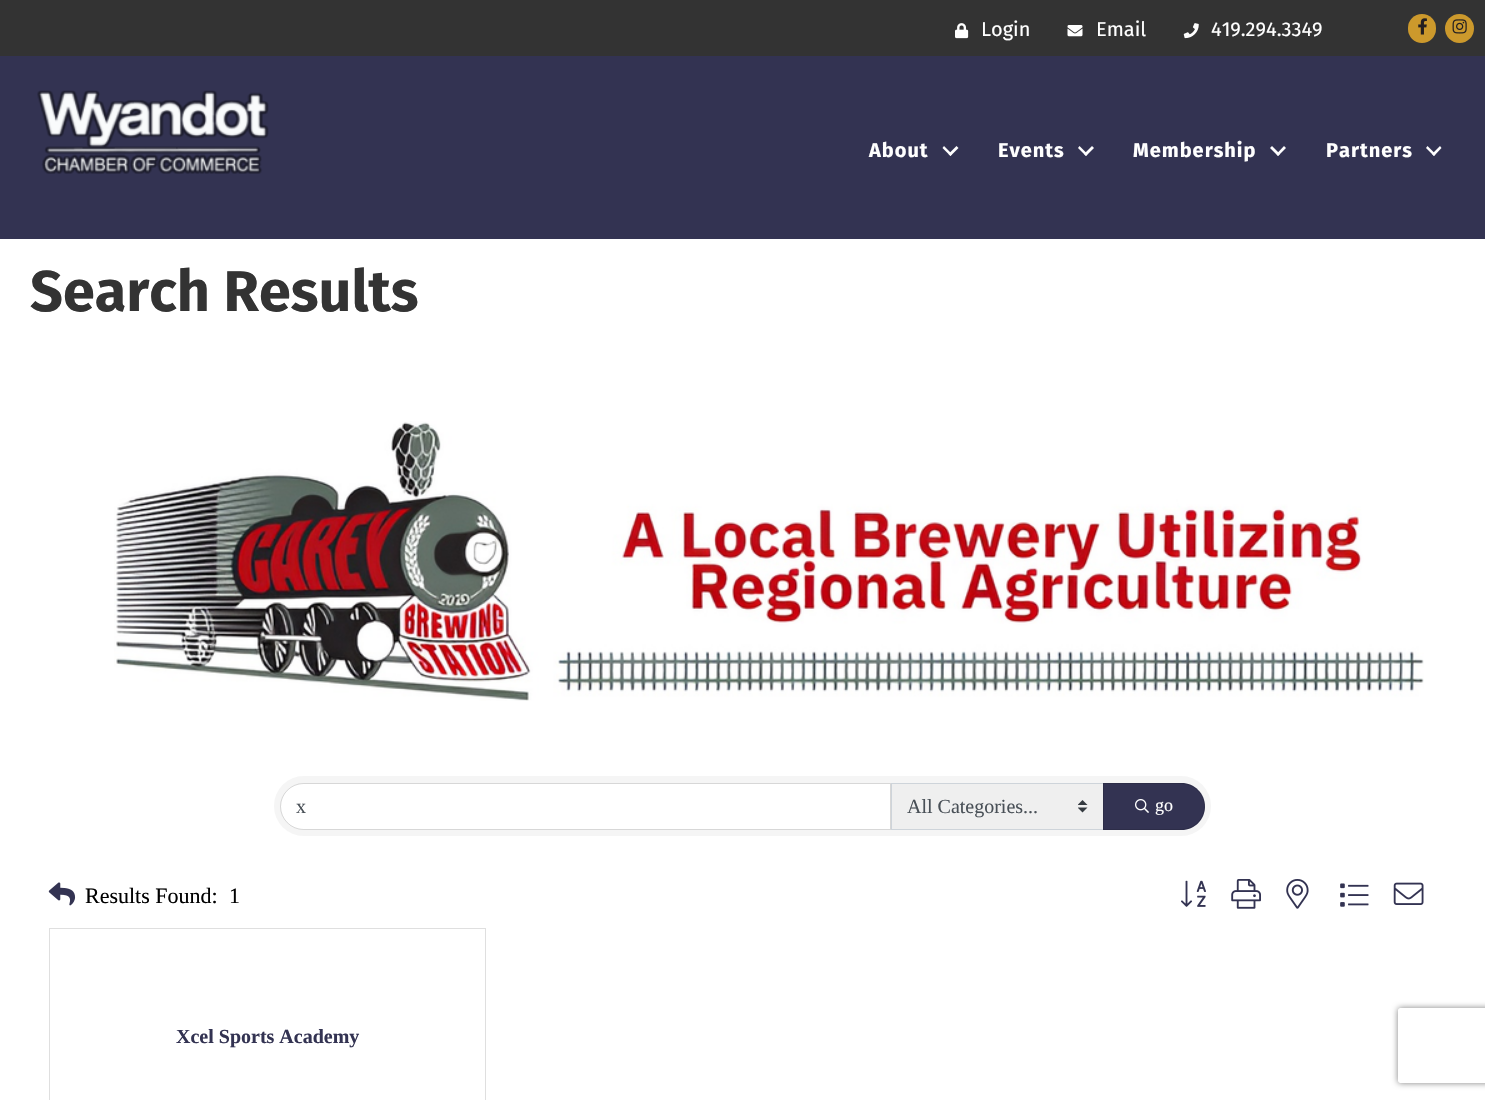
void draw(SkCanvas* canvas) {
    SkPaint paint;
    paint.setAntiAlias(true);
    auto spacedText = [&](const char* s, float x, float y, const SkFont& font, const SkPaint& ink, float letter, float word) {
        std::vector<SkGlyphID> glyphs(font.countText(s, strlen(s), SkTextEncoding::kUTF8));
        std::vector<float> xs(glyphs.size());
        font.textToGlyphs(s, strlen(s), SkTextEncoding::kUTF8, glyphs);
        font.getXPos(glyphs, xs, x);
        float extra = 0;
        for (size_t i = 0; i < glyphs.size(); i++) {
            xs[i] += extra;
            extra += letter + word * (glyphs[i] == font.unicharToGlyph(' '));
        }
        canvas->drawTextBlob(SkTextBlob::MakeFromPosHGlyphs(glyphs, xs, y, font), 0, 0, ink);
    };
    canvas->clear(0xFF333333);
    canvas->drawImageRect(SkImages::DeferredFromEncodedData(SkData::MakeFromFileName("img1.png")), SkRect::MakeXYWH(955, 23, 14, 16), SkSamplingOptions());
    SkFont font1(fontMgr->matchFamilyStyle("Fira Sans", SkFontStyle::Normal()), 20);
    font1.setSubpixel(true);
    paint.setColor(0xFFFFFFFF);
    canvas->drawString("Login", 981, 36, font1, paint);
    canvas->drawImageRect(SkImages::DeferredFromEncodedData(SkData::MakeFromFileName("img2.png")), SkRect::MakeXYWH(1067, 25, 16, 12), SkSamplingOptions());
    canvas->drawString("Email", 1096, 36, font1, paint);
    canvas->drawImageRect(SkImages::DeferredFromEncodedData(SkData::MakeFromFileName("img3.png")), SkRect::MakeXYWH(1183, 23, 16, 16), SkSamplingOptions());
    canvas->drawString("419.294.3349", 1211, 36, font1, paint);
    paint.setColor(0xFFCC992C);
    canvas->drawRoundRect(SkRect::MakeXYWH(1408, 14, 28, 29), 14, 14, paint);
    canvas->drawImageRect(SkImages::DeferredFromEncodedData(SkData::MakeFromFileName("img4.png")), SkRect::MakeXYWH(1418, 18, 9, 17), SkSamplingOptions());
    canvas->drawCircle(1459.5f, 28.5f, 14.5f, paint);
    canvas->drawImageRect(SkImages::DeferredFromEncodedData(SkData::MakeFromFileName("img5.png")), SkRect::MakeXYWH(1452, 19, 15, 15), SkSamplingOptions());
    paint.setColor(0xFF333352);
    canvas->drawRect(SkRect::MakeXYWH(0, 56, 1485, 183), paint);
    canvas->drawImageRect(SkImages::DeferredFromEncodedData(SkData::MakeFromFileName("img6.png")), SkRect::MakeXYWH(37, 90, 232, 84), SkSamplingOptions());
    SkFont font2(fontMgr->matchFamilyStyle("Fira Sans", SkFontStyle::Bold()), 20);
    font2.setSubpixel(true);
    paint.setColor(0xFFFFFFFF);
    spacedText("About", 869, 157, font2, paint, 1, 0);
    canvas->drawPath(SkPathBuilder().moveTo(956.5f, 146).lineTo(958.5f, 148).lineTo(950.5f, 156).lineTo(948.5f, 154).close().detach(), paint);
    canvas->drawPath(SkPathBuilder().moveTo(944, 146).lineTo(952, 154).lineTo(950.5f, 156).lineTo(942.5f, 148).close().detach(), paint);
    spacedText("Events", 998, 157, font2, paint, 1, 0);
    canvas->drawPath(SkPathBuilder().moveTo(1092, 146).lineTo(1094, 148).lineTo(1086, 156).lineTo(1084, 154).close().detach(), paint);
    canvas->drawPath(SkPathBuilder().moveTo(1079.5f, 146).lineTo(1087.5f, 154).lineTo(1086, 156).lineTo(1078, 148).close().detach(), paint);
    spacedText("Membership", 1133, 157, font2, paint, 1, 0);
    canvas->drawPath(SkPathBuilder().moveTo(1284, 146).lineTo(1286, 148).lineTo(1278, 156).lineTo(1276.5f, 154).close().detach(), paint);
    canvas->drawPath(SkPathBuilder().moveTo(1272, 146).lineTo(1280, 154).lineTo(1278, 156).lineTo(1270, 148).close().detach(), paint);
    spacedText("Partners", 1326, 157, font2, paint, 1, 0);
    canvas->drawPath(SkPathBuilder().moveTo(1440, 146).lineTo(1441.5f, 148).lineTo(1434, 156).lineTo(1432, 154).close().detach(), paint);
    canvas->drawPath(SkPathBuilder().moveTo(1427.5f, 146).lineTo(1435.5f, 154).lineTo(1434, 156).lineTo(1426, 148).close().detach(), paint);
    canvas->drawRect(SkRect::MakeXYWH(0, 239, 1485, 861), paint);
    SkFont font3(fontMgr->matchFamilyStyle("Fira Sans", SkFontStyle::Bold()), 57.5f);
    font3.setSubpixel(true);
    paint.setColor(0xFF333333);
    canvas->drawString("Search Results", 30, 311, font3, paint);
    canvas->drawImageRect(SkImages::DeferredFromEncodedData(SkData::MakeFromFileName("img7.png")), SkRect::MakeXYWH(114, 421, 1310, 280), SkSamplingOptions());
    paint.setColor(0xFFF5F5F5);
    canvas->drawRoundRect(SkRect::MakeXYWH(274, 776, 937, 60), 30, 30, paint);
    paint.setColor(0xFFFFFFFF);
    canvas->drawPath(SkPathBuilder().moveTo(303.5f, 784).lineTo(890, 784).lineTo(890, 829).lineTo(303.5f, 829).cubicTo(291, 829, 281, 819, 281, 806.5f).cubicTo(281, 794, 291, 784, 303.5f, 784).close().detach(), paint);
    paint.setStyle(SkPaint::kStroke_Style);
    paint.setStrokeWidth(1);
    paint.setColor(0x1F000000);
    canvas->drawPath(SkPathBuilder().moveTo(303.5f, 783.5f).lineTo(890.5f, 783.5f).lineTo(890.5f, 829.5f).lineTo(303.5f, 829.5f).cubicTo(291, 829.5f, 280.5f, 819, 280.5f, 806.5f).cubicTo(280.5f, 794, 291, 783.5f, 303.5f, 783.5f).close().detach(), paint);
    SkFont font4(fontMgr->matchFamilyStyle("Liberation Serif", SkFontStyle::Normal()), 20);
    font4.setSubpixel(true);
    paint.setStyle(SkPaint::kFill_Style);
    paint.setColor(0xFF495057);
    canvas->drawString("x", 296, 813, font4, paint);
    paint.setColor(0xFFEFEFEF);
    canvas->drawRect(SkRect::MakeXYWH(892, 784, 211, 45), paint);
    canvas->drawImageRect(SkImages::DeferredFromEncodedData(SkData::MakeFromFileName("img8.png")), SkRect::MakeXYWH(1078, 800, 10, 13), SkSamplingOptions());
    paint.setStyle(SkPaint::kStroke_Style);
    paint.setColor(0xFFCED4DA);
    canvas->drawRect(SkRect::MakeXYWH(891.5f, 783.5f, 212, 46), paint);
    paint.setStyle(SkPaint::kFill_Style);
    paint.setColor(0xFF495057);
    canvas->drawString("All Categories...", 907, 813, font4, paint);
    paint.setColor(0xFF333352);
    canvas->drawPath(SkPathBuilder().moveTo(1103, 783).lineTo(1181.5f, 783).cubicTo(1194.5f, 783, 1205, 793.5f, 1205, 806.5f).cubicTo(1205, 819.5f, 1194.5f, 830, 1181.5f, 830).lineTo(1103, 830).close().detach(), paint);
    paint.setStyle(SkPaint::kStroke_Style);
    paint.setColor(0x1F000000);
    canvas->drawPath(SkPathBuilder().moveTo(1103.5f, 783.5f).lineTo(1181.5f, 783.5f).cubicTo(1194, 783.5f, 1204.5f, 794, 1204.5f, 806.5f).cubicTo(1204.5f, 819, 1194, 829.5f, 1181.5f, 829.5f).lineTo(1103.5f, 829.5f).close().detach(), paint);
    canvas->drawImageRect(SkImages::DeferredFromEncodedData(SkData::MakeFromFileName("img9.png")), SkRect::MakeXYWH(1135, 799, 14, 14), SkSamplingOptions());
    SkFont font5(fontMgr->matchFamilyStyle("Liberation Serif", SkFontStyle::Normal()), 18);
    font5.setSubpixel(true);
    paint.setStyle(SkPaint::kFill_Style);
    paint.setColor(0xFFFFFFFF);
    canvas->drawString("go", 1155, 811, font5, paint);
    canvas->drawImageRect(SkImages::DeferredFromEncodedData(SkData::MakeFromFileName("img10.png")), SkRect::MakeXYWH(48, 882, 28, 24), SkSamplingOptions());
    SkFont font6(fontMgr->matchFamilyStyle("Liberation Serif", SkFontStyle::Normal()), 22);
    font6.setSubpixel(true);
    paint.setColor(0xFF000000);
    canvas->drawString("Results Found:", 85, 903, font6, paint);
    canvas->drawString("1", 229, 903, font6, paint);
    canvas->drawImageRect(SkImages::DeferredFromEncodedData(SkData::MakeFromFileName("img11.png")), SkRect::MakeXYWH(1181, 880, 25, 27), SkSamplingOptions());
    canvas->drawImageRect(SkImages::DeferredFromEncodedData(SkData::MakeFromFileName("img12.png")), SkRect::MakeXYWH(1231, 879, 30, 30), SkSamplingOptions());
    canvas->drawImageRect(SkImages::DeferredFromEncodedData(SkData::MakeFromFileName("img13.png")), SkRect::MakeXYWH(1286, 879, 23, 30), SkSamplingOptions());
    canvas->drawImageRect(SkImages::DeferredFromEncodedData(SkData::MakeFromFileName("img14.png")), SkRect::MakeXYWH(1340, 883, 29, 24), SkSamplingOptions());
    canvas->drawImageRect(SkImages::DeferredFromEncodedData(SkData::MakeFromFileName("img15.png")), SkRect::MakeXYWH(1393, 882, 31, 23), SkSamplingOptions());
    paint.setStyle(SkPaint::kStroke_Style);
    paint.setColor(0xFFDFDFDF);
    canvas->drawRect(SkRect::MakeXYWH(49.5f, 928.5f, 436, 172), paint);
    SkFont font7(fontMgr->matchFamilyStyle("Liberation Serif", SkFontStyle::Bold()), 20);
    font7.setSubpixel(true);
    paint.setStyle(SkPaint::kFill_Style);
    paint.setColor(0xFF333352);
    canvas->drawString("Xcel Sports Academy", 176, 1043, font7, paint);
    canvas->save();
    canvas->clipPath(SkPathBuilder(SkPathFillType::kEvenOdd).moveTo(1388, 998).lineTo(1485, 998).lineTo(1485, 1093).lineTo(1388, 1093).close().moveTo(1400.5f, 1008).lineTo(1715.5f, 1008).cubicTo(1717, 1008, 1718, 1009, 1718, 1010.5f).lineTo(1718, 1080.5f).cubicTo(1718, 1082, 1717, 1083, 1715.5f, 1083).lineTo(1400.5f, 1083).cubicTo(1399, 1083, 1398, 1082, 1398, 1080.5f).lineTo(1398, 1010.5f).cubicTo(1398, 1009, 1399, 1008, 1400.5f, 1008).close().detach(), true);
    paint.setColor(0xFF808080);
    paint.setMaskFilter(SkMaskFilter::MakeBlur(kNormal_SkBlurStyle, 3));
    canvas->drawRoundRect(SkRect::MakeXYWH(1398, 1008, 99, 75), 2.5f, 2.5f, paint);
    paint.setMaskFilter(nullptr);
    canvas->restore();
}
